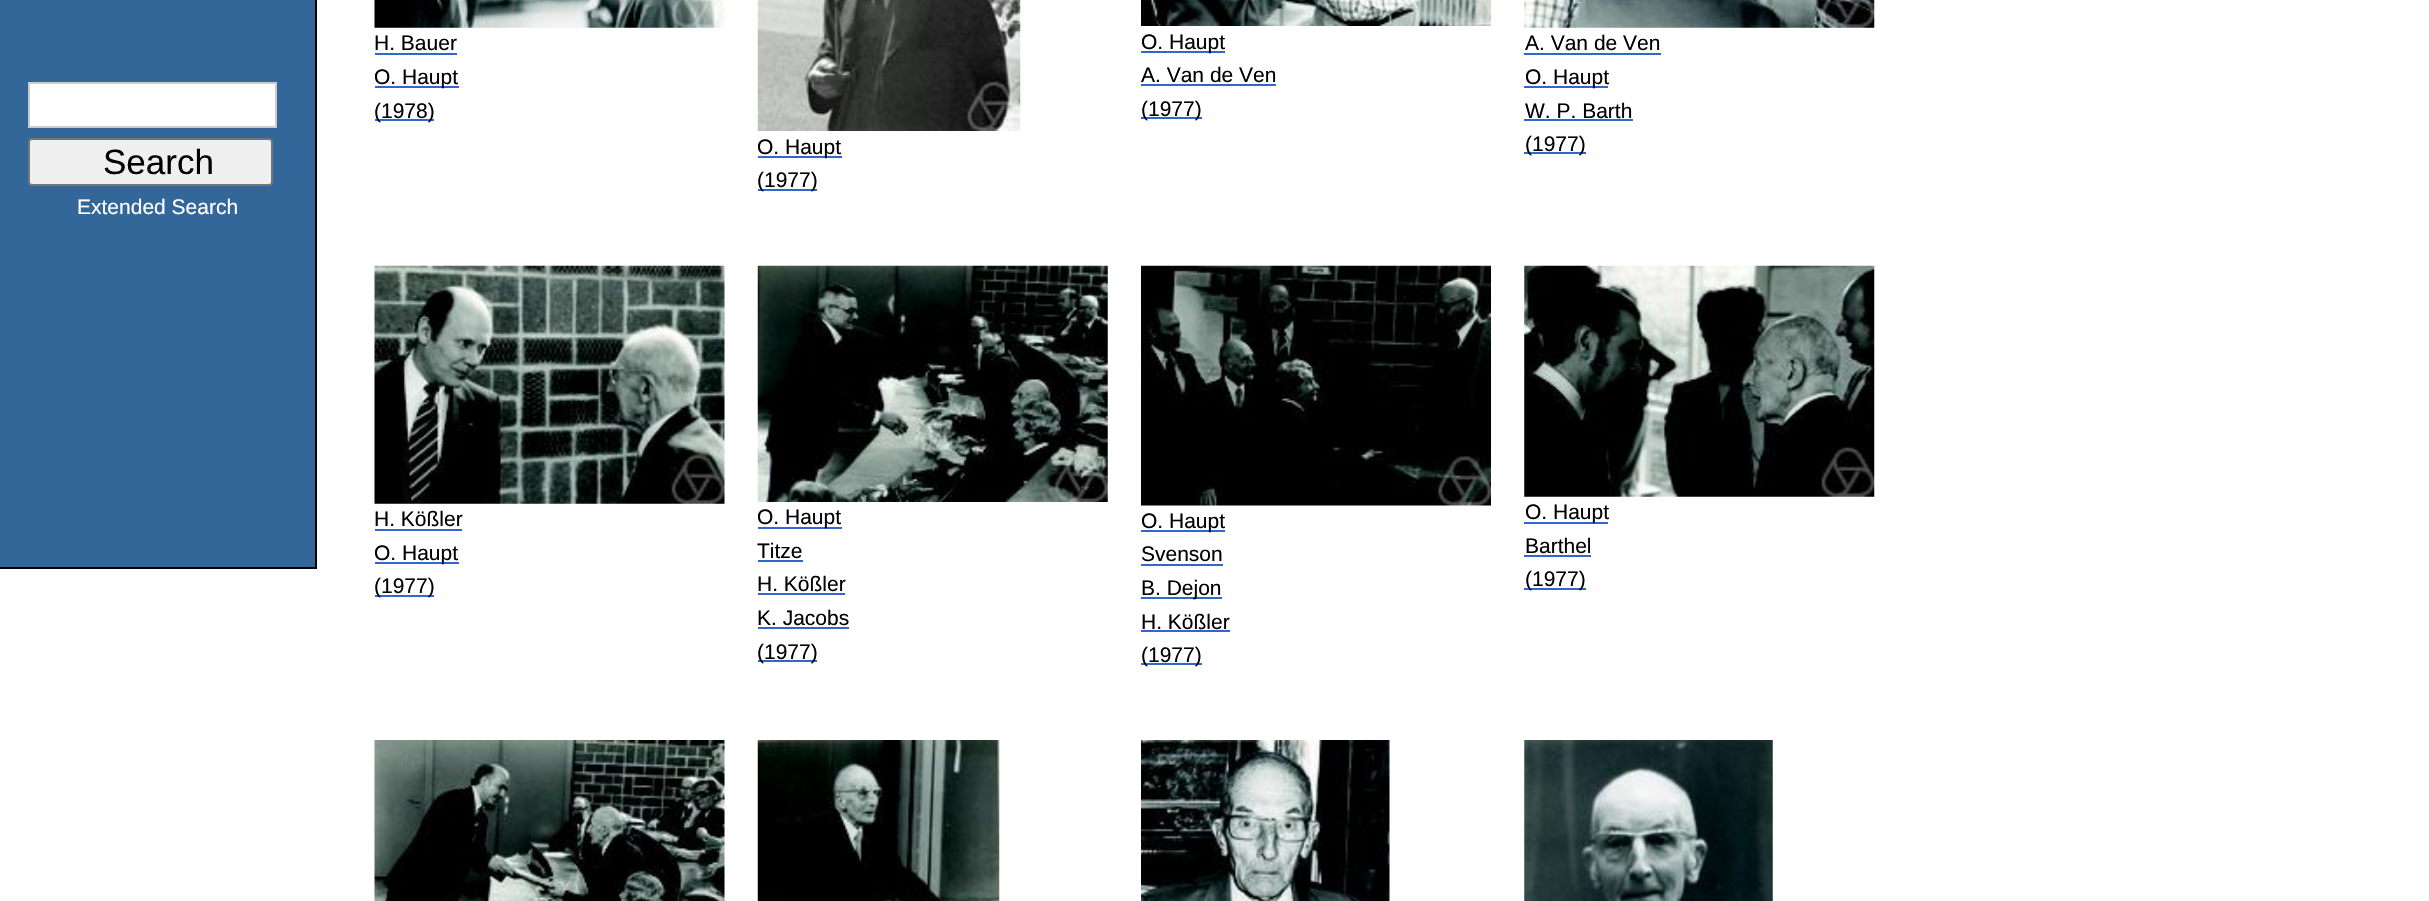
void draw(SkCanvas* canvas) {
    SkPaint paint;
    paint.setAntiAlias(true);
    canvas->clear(0xFFFFFFFF);
    paint.setColor(0xFF336699);
    canvas->drawRect(SkRect::MakeXYWH(0, 0, 315, 567), paint);
    paint.setColor(0xFF000000);
    canvas->drawRect(SkRect::MakeXYWH(315, 0, 2, 569), paint);
    canvas->drawRect(SkRect::MakeXYWH(0, 567, 317, 2), paint);
    paint.setColor(0xFFFFFFFF);
    canvas->drawRect(SkRect::MakeXYWH(29, 83, 247, 44), paint);
    paint.setStyle(SkPaint::kStroke_Style);
    paint.setStrokeWidth(2);
    paint.setColor(0xFFCCCCCC);
    canvas->drawRect(SkRect::MakeXYWH(29, 83, 247, 44), paint);
    paint.setStyle(SkPaint::kFill_Style);
    paint.setColor(0xFFEFEFEF);
    canvas->drawRoundRect(SkRect::MakeXYWH(29, 139, 243, 46), 3, 3, paint);
    paint.setStyle(SkPaint::kStroke_Style);
    paint.setColor(0xFF767676);
    canvas->drawRoundRect(SkRect::MakeXYWH(29, 139, 243, 46), 3, 3, paint);
    SkFont font1(fontMgr->matchFamilyStyle("Liberation Sans", SkFontStyle::Normal()), 35);
    font1.setSubpixel(true);
    paint.setStyle(SkPaint::kFill_Style);
    paint.setColor(0xFF000000);
    canvas->drawString("Search", 103, 174, font1, paint);
    SkFont font2(fontMgr->matchFamilyStyle("Liberation Sans", SkFontStyle::Normal()), 21);
    font2.setSubpixel(true);
    paint.setColor(0xFFFFFFFF);
    canvas->drawString("Extended Search", 77, 214, font2, paint);
    canvas->drawImageRect(SkImages::DeferredFromEncodedData(SkData::MakeFromFileName("img1.png")), SkRect::MakeXYWH(374, 0, 351, 28), SkSamplingOptions());
    paint.setColor(0xFF000000);
    canvas->drawString("H. Bauer", 374, 50, font2, paint);
    paint.setColor(0xFF3366CC);
    canvas->drawRect(SkRect::MakeXYWH(375, 53, 82, 2), paint);
    canvas->drawRect(SkRect::MakeXYWH(375, 86, 84, 2), paint);
    paint.setColor(0xFF000000);
    canvas->drawString("O. Haupt", 374, 84, font2, paint);
    paint.setColor(0xFF3366CC);
    canvas->drawRect(SkRect::MakeXYWH(375, 119, 59, 2), paint);
    paint.setColor(0xFF000000);
    canvas->drawString("(1978)", 374, 118, font2, paint);
    canvas->drawImageRect(SkImages::DeferredFromEncodedData(SkData::MakeFromFileName("img2.png")), SkRect::MakeXYWH(1141, 0, 350, 26), SkSamplingOptions());
    paint.setColor(0xFF3366CC);
    canvas->drawRect(SkRect::MakeXYWH(1141, 51, 84, 2), paint);
    paint.setColor(0xFF000000);
    canvas->drawString("O. Haupt", 1141, 49, font2, paint);
    canvas->drawString("A. Van de Ven", 1141, 82, font2, paint);
    paint.setColor(0xFF3366CC);
    canvas->drawRect(SkRect::MakeXYWH(1141, 84, 135, 2), paint);
    canvas->drawRect(SkRect::MakeXYWH(1141, 117, 61, 2), paint);
    paint.setColor(0xFF000000);
    canvas->drawString("(1977)", 1141, 116, font2, paint);
    canvas->drawImageRect(SkImages::DeferredFromEncodedData(SkData::MakeFromFileName("img3.png")), SkRect::MakeXYWH(1524, 0, 351, 28), SkSamplingOptions());
    canvas->drawString("A. Van de Ven", 1525, 50, font2, paint);
    paint.setColor(0xFF3366CC);
    canvas->drawRect(SkRect::MakeXYWH(1524, 53, 137, 2), paint);
    canvas->drawRect(SkRect::MakeXYWH(1524, 86, 84, 2), paint);
    paint.setColor(0xFF000000);
    canvas->drawString("O. Haupt", 1525, 84, font2, paint);
    canvas->drawString("W. P. Barth", 1525, 118, font2, paint);
    paint.setColor(0xFF3366CC);
    canvas->drawRect(SkRect::MakeXYWH(1524, 119, 109, 2), paint);
    canvas->drawRect(SkRect::MakeXYWH(1524, 152, 62, 2), paint);
    paint.setColor(0xFF000000);
    canvas->drawString("(1977)", 1525, 151, font2, paint);
    canvas->drawImageRect(SkImages::DeferredFromEncodedData(SkData::MakeFromFileName("img4.png")), SkRect::MakeXYWH(757, 0, 264, 131), SkSamplingOptions());
    paint.setColor(0xFF3366CC);
    canvas->drawRect(SkRect::MakeXYWH(758, 156, 84, 2), paint);
    paint.setColor(0xFF000000);
    canvas->drawString("O. Haupt", 757, 154, font2, paint);
    paint.setColor(0xFF3366CC);
    canvas->drawRect(SkRect::MakeXYWH(758, 189, 59, 2), paint);
    paint.setColor(0xFF000000);
    canvas->drawString("(1977)", 757, 187, font2, paint);
    canvas->drawImageRect(SkImages::DeferredFromEncodedData(SkData::MakeFromFileName("img5.png")), SkRect::MakeXYWH(374, 265, 351, 239), SkSamplingOptions());
    canvas->drawString("H. Kößler", 374, 526, font2, paint);
    paint.setColor(0xFF3366CC);
    canvas->drawRect(SkRect::MakeXYWH(375, 529, 87, 2), paint);
    canvas->drawRect(SkRect::MakeXYWH(375, 562, 84, 2), paint);
    paint.setColor(0xFF000000);
    canvas->drawString("O. Haupt", 374, 560, font2, paint);
    paint.setColor(0xFF3366CC);
    canvas->drawRect(SkRect::MakeXYWH(375, 595, 59, 2), paint);
    paint.setColor(0xFF000000);
    canvas->drawString("(1977)", 374, 593, font2, paint);
    canvas->drawImageRect(SkImages::DeferredFromEncodedData(SkData::MakeFromFileName("img6.png")), SkRect::MakeXYWH(757, 265, 351, 237), SkSamplingOptions());
    paint.setColor(0xFF3366CC);
    canvas->drawRect(SkRect::MakeXYWH(758, 527, 84, 2), paint);
    paint.setColor(0xFF000000);
    canvas->drawString("O. Haupt", 757, 524, font2, paint);
    canvas->drawString("Titze", 757, 558, font2, paint);
    paint.setColor(0xFF3366CC);
    canvas->drawRect(SkRect::MakeXYWH(758, 560, 45, 2), paint);
    paint.setColor(0xFF000000);
    canvas->drawString("H. Kößler", 757, 591, font2, paint);
    paint.setColor(0xFF3366CC);
    canvas->drawRect(SkRect::MakeXYWH(758, 593, 87, 2), paint);
    paint.setColor(0xFF000000);
    canvas->drawString("K. Jacobs", 757, 625, font2, paint);
    paint.setColor(0xFF3366CC);
    canvas->drawRect(SkRect::MakeXYWH(758, 627, 91, 2), paint);
    canvas->drawRect(SkRect::MakeXYWH(758, 660, 59, 2), paint);
    paint.setColor(0xFF000000);
    canvas->drawString("(1977)", 757, 659, font2, paint);
    canvas->drawImageRect(SkImages::DeferredFromEncodedData(SkData::MakeFromFileName("img7.png")), SkRect::MakeXYWH(1141, 265, 350, 241), SkSamplingOptions());
    paint.setColor(0xFF3366CC);
    canvas->drawRect(SkRect::MakeXYWH(1141, 530, 84, 2), paint);
    paint.setColor(0xFF000000);
    canvas->drawString("O. Haupt", 1141, 528, font2, paint);
    canvas->drawString("Svenson", 1141, 561, font2, paint);
    paint.setColor(0xFF3366CC);
    canvas->drawRect(SkRect::MakeXYWH(1141, 564, 82, 2), paint);
    canvas->drawRect(SkRect::MakeXYWH(1141, 597, 81, 2), paint);
    paint.setColor(0xFF000000);
    canvas->drawString("B. Dejon", 1141, 595, font2, paint);
    canvas->drawString("H. Kößler", 1141, 629, font2, paint);
    paint.setColor(0xFF3366CC);
    canvas->drawRect(SkRect::MakeXYWH(1141, 630, 89, 2), paint);
    canvas->drawRect(SkRect::MakeXYWH(1141, 663, 61, 2), paint);
    paint.setColor(0xFF000000);
    canvas->drawString("(1977)", 1141, 662, font2, paint);
    canvas->drawImageRect(SkImages::DeferredFromEncodedData(SkData::MakeFromFileName("img8.png")), SkRect::MakeXYWH(1524, 265, 351, 232), SkSamplingOptions());
    paint.setColor(0xFF3366CC);
    canvas->drawRect(SkRect::MakeXYWH(1524, 522, 84, 2), paint);
    paint.setColor(0xFF000000);
    canvas->drawString("O. Haupt", 1525, 519, font2, paint);
    canvas->drawString("Barthel", 1525, 553, font2, paint);
    paint.setColor(0xFF3366CC);
    canvas->drawRect(SkRect::MakeXYWH(1524, 555, 67, 2), paint);
    canvas->drawRect(SkRect::MakeXYWH(1524, 588, 62, 2), paint);
    paint.setColor(0xFF000000);
    canvas->drawString("(1977)", 1525, 586, font2, paint);
    canvas->drawImageRect(SkImages::DeferredFromEncodedData(SkData::MakeFromFileName("img9.png")), SkRect::MakeXYWH(374, 740, 351, 161), SkSamplingOptions());
    canvas->drawImageRect(SkImages::DeferredFromEncodedData(SkData::MakeFromFileName("img10.png")), SkRect::MakeXYWH(757, 740, 243, 161), SkSamplingOptions());
    canvas->drawImageRect(SkImages::DeferredFromEncodedData(SkData::MakeFromFileName("img11.png")), SkRect::MakeXYWH(1141, 740, 249, 161), SkSamplingOptions());
    canvas->drawImageRect(SkImages::DeferredFromEncodedData(SkData::MakeFromFileName("img12.png")), SkRect::MakeXYWH(1524, 740, 249, 161), SkSamplingOptions());
}
